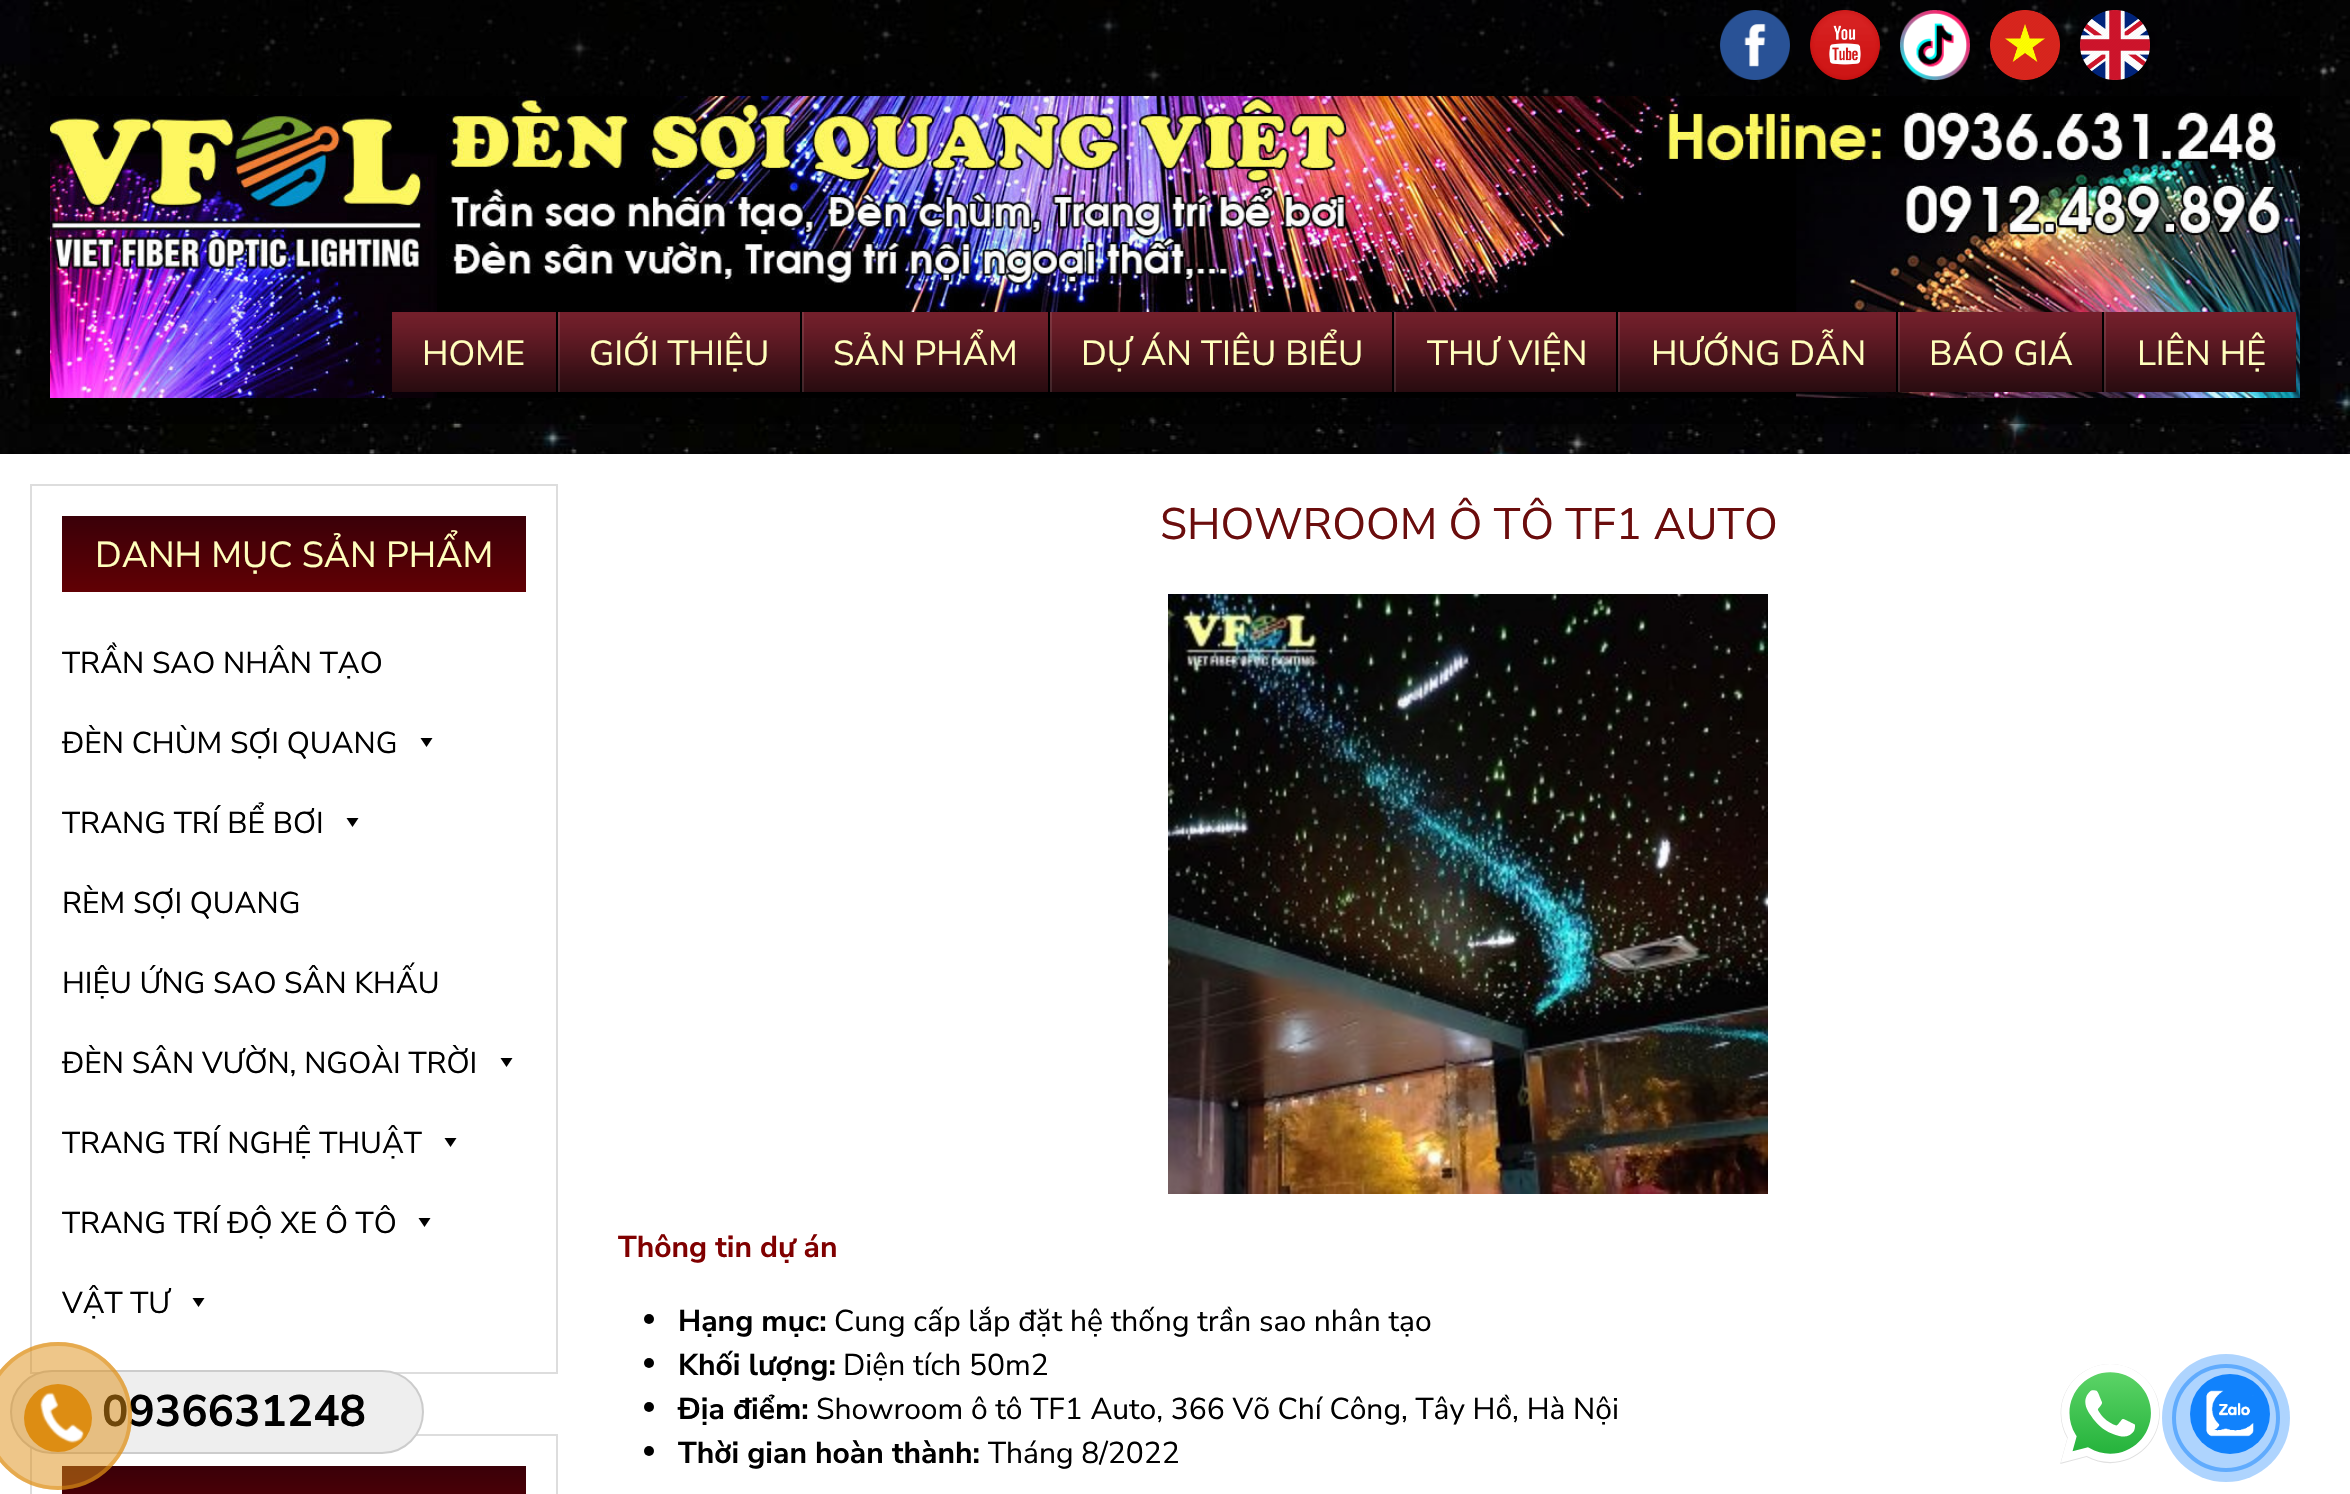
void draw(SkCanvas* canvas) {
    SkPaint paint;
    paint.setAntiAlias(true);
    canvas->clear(0xFFFFFFFF);
    canvas->drawImageRect(SkImages::DeferredFromEncodedData(SkData::MakeFromFileName("img1.png")), SkRect::MakeXYWH(0, 0, 2350, 454), SkSamplingOptions());
    canvas->drawImageRect(SkImages::DeferredFromEncodedData(SkData::MakeFromFileName("img2.png")), SkRect::MakeXYWH(1720, 10, 70, 70), SkSamplingOptions());
    canvas->drawImageRect(SkImages::DeferredFromEncodedData(SkData::MakeFromFileName("img3.png")), SkRect::MakeXYWH(1810, 10, 70, 70), SkSamplingOptions());
    canvas->drawImageRect(SkImages::DeferredFromEncodedData(SkData::MakeFromFileName("img4.png")), SkRect::MakeXYWH(1900, 10, 70, 70), SkSamplingOptions());
    canvas->drawImageRect(SkImages::DeferredFromEncodedData(SkData::MakeFromFileName("img5.png")), SkRect::MakeXYWH(1990, 10, 70, 70), SkSamplingOptions());
    canvas->drawImageRect(SkImages::DeferredFromEncodedData(SkData::MakeFromFileName("img6.png")), SkRect::MakeXYWH(2080, 10, 70, 70), SkSamplingOptions());
    canvas->drawImageRect(SkImages::DeferredFromEncodedData(SkData::MakeFromFileName("img7.png")), SkRect::MakeXYWH(50, 96, 2250, 302), SkSamplingOptions());
    paint.setColor(0xFFE63E56);
    canvas->drawRect(SkRect::MakeXYWH(392, 312, 164, 80), paint);
    canvas->drawImageRect(SkImages::DeferredFromEncodedData(SkData::MakeFromFileName("img8.png")), SkRect::MakeXYWH(392, 312, 164, 80), SkSamplingOptions());
    SkFont font1(fontMgr->matchFamilyStyle("Nunito Sans", SkFontStyle::Normal()), 34.75f);
    font1.setSubpixel(true);
    paint.setColor(0xFFFFFFBD);
    canvas->drawString("HOME", 422, 365, font1, paint);
    paint.setColor(0xFFE63E56);
    canvas->drawRect(SkRect::MakeXYWH(558, 312, 242, 80), paint);
    canvas->drawImageRect(SkImages::DeferredFromEncodedData(SkData::MakeFromFileName("img9.png")), SkRect::MakeXYWH(558, 312, 242, 80), SkSamplingOptions());
    paint.setColor(0x1AFFFFFF);
    canvas->drawRect(SkRect::MakeXYWH(558, 312, 2, 80), paint);
    paint.setColor(0xFFFFFFBD);
    canvas->drawString("GIỚI THIỆU", 589, 365, font1, paint);
    paint.setColor(0xFFE63E56);
    canvas->drawRect(SkRect::MakeXYWH(802, 312, 246, 80), paint);
    canvas->drawImageRect(SkImages::DeferredFromEncodedData(SkData::MakeFromFileName("img10.png")), SkRect::MakeXYWH(802, 312, 246, 80), SkSamplingOptions());
    paint.setColor(0xFF000000);
    canvas->drawRect(SkRect::MakeXYWH(1048, 312, 2, 36), paint);
    paint.setColor(0x1AFFFFFF);
    canvas->drawRect(SkRect::MakeXYWH(802, 312, 2, 80), paint);
    paint.setColor(0xFFFFFFBD);
    canvas->drawString("SẢN PHẨM", 833, 365, font1, paint);
    paint.setColor(0xFFE63E56);
    canvas->drawRect(SkRect::MakeXYWH(1050, 312, 342, 80), paint);
    canvas->drawImageRect(SkImages::DeferredFromEncodedData(SkData::MakeFromFileName("img11.png")), SkRect::MakeXYWH(1050, 312, 342, 80), SkSamplingOptions());
    paint.setColor(0xFF000000);
    canvas->drawRect(SkRect::MakeXYWH(1392, 312, 2, 9), paint);
    paint.setColor(0x1AFFFFFF);
    canvas->drawRect(SkRect::MakeXYWH(1050, 312, 2, 80), paint);
    paint.setColor(0xFFFFFFBD);
    canvas->drawString("DỰ ÁN TIÊU BIỂU", 1081, 365, font1, paint);
    paint.setColor(0xFFE63E56);
    canvas->drawRect(SkRect::MakeXYWH(1394, 312, 222, 80), paint);
    canvas->drawImageRect(SkImages::DeferredFromEncodedData(SkData::MakeFromFileName("img12.png")), SkRect::MakeXYWH(1394, 312, 222, 80), SkSamplingOptions());
    paint.setColor(0x1AFFFFFF);
    canvas->drawRect(SkRect::MakeXYWH(1394, 312, 2, 80), paint);
    paint.setColor(0xFFFFFFBD);
    canvas->drawString("THƯ VIỆN", 1427, 365, font1, paint);
    paint.setColor(0xFFE63E56);
    canvas->drawRect(SkRect::MakeXYWH(1618, 312, 278, 80), paint);
    canvas->drawImageRect(SkImages::DeferredFromEncodedData(SkData::MakeFromFileName("img13.png")), SkRect::MakeXYWH(1618, 312, 278, 80), SkSamplingOptions());
    paint.setColor(0xFF000000);
    canvas->drawRect(SkRect::MakeXYWH(1896, 312, 2, 80), paint);
    paint.setColor(0x1AFFFFFF);
    canvas->drawRect(SkRect::MakeXYWH(1618, 312, 2, 80), paint);
    paint.setColor(0xFFFFFFBD);
    canvas->drawString("HƯỚNG DẪN", 1651, 365, font1, paint);
    paint.setColor(0xFFE63E56);
    canvas->drawRect(SkRect::MakeXYWH(1898, 312, 204, 80), paint);
    canvas->drawImageRect(SkImages::DeferredFromEncodedData(SkData::MakeFromFileName("img14.png")), SkRect::MakeXYWH(1898, 312, 204, 80), SkSamplingOptions());
    paint.setColor(0xFF000000);
    canvas->drawRect(SkRect::MakeXYWH(2102, 312, 2, 80), paint);
    paint.setColor(0x1AFFFFFF);
    canvas->drawRect(SkRect::MakeXYWH(1898, 312, 2, 80), paint);
    paint.setColor(0xFFFFFFBD);
    canvas->drawString("BÁO GIÁ", 1929, 365, font1, paint);
    paint.setColor(0xFFE63E56);
    canvas->drawRect(SkRect::MakeXYWH(2104, 312, 192, 80), paint);
    canvas->drawImageRect(SkImages::DeferredFromEncodedData(SkData::MakeFromFileName("img15.png")), SkRect::MakeXYWH(2104, 312, 192, 80), SkSamplingOptions());
    paint.setColor(0x1AFFFFFF);
    canvas->drawRect(SkRect::MakeXYWH(2104, 312, 2, 80), paint);
    paint.setColor(0xFFFFFFBD);
    canvas->drawString("LIÊN HỆ", 2137, 365, font1, paint);
    paint.setStyle(SkPaint::kStroke_Style);
    paint.setStrokeWidth(2);
    paint.setColor(0xFFDDDDDD);
    canvas->drawRect(SkRect::MakeXYWH(31, 485, 526, 888), paint);
    paint.setStyle(SkPaint::kFill_Style);
    {
        const SkColor colors[] = {0xFF3A0008, 0xFF610004};
        const float stops[] = {0, 1};
        const SkPoint ends[] = {{294, 516}, {294, 592}};
        paint.setShader(SkGradientShader::MakeLinear(ends, colors, stops, 2, SkTileMode::kClamp));
        paint.setAlpha(255);
    }
    canvas->drawRect(SkRect::MakeXYWH(62, 516, 464, 76), paint);
    SkFont font2(fontMgr->matchFamilyStyle("Nunito Sans", SkFontStyle::Normal()), 36);
    font2.setSubpixel(true);
    paint.setShader(nullptr);
    paint.setColor(0xFFFFFFBD);
    canvas->drawString("DANH MỤC SẢN PHẨM", 95, 567, font2, paint);
    SkFont font3(fontMgr->matchFamilyStyle("Nunito Sans", SkFontStyle::Normal()), 30);
    font3.setSubpixel(true);
    paint.setColor(0xFF000000);
    canvas->drawString("TRẦN SAO NHÂN TẠO", 62, 673, font3, paint);
    canvas->drawString("ĐÈN CHÙM SỢI QUANG", 62, 753, font3, paint);
    canvas->drawPath(SkPathBuilder().moveTo(432.5f, 738).lineTo(426.5f, 747).lineTo(420.5f, 738).close().detach(), paint);
    canvas->drawString("TRANG TRÍ BỂ BƠI", 62, 833, font3, paint);
    canvas->drawPath(SkPathBuilder().moveTo(358.5f, 818).lineTo(352.5f, 827).lineTo(346.5f, 818).close().detach(), paint);
    canvas->drawString("RÈM SỢI QUANG", 62, 913, font3, paint);
    canvas->drawString("HIỆU ỨNG SAO SÂN KHẤU", 62, 993, font3, paint);
    canvas->drawString("ĐÈN SÂN VƯỜN, NGOÀI TRỜI", 62, 1073, font3, paint);
    canvas->drawPath(SkPathBuilder().moveTo(512.5f, 1058).lineTo(506.5f, 1067).lineTo(500.5f, 1058).close().detach(), paint);
    canvas->drawString("TRANG TRÍ NGHỆ THUẬT", 62, 1153, font3, paint);
    canvas->drawPath(SkPathBuilder().moveTo(456.5f, 1138).lineTo(450.5f, 1147).lineTo(444.5f, 1138).close().detach(), paint);
    canvas->drawString("TRANG TRÍ ĐỘ XE Ô TÔ", 62, 1233, font3, paint);
    canvas->drawPath(SkPathBuilder().moveTo(430.5f, 1218).lineTo(424.5f, 1227).lineTo(418.5f, 1218).close().detach(), paint);
    canvas->drawString("VẬT TƯ", 62, 1313, font3, paint);
    canvas->drawPath(SkPathBuilder().moveTo(204.5f, 1298).lineTo(198.5f, 1307).lineTo(192.5f, 1298).close().detach(), paint);
    paint.setStyle(SkPaint::kStroke_Style);
    paint.setColor(0xFFDDDDDD);
    canvas->drawRect(SkRect::MakeXYWH(31, 1435, 526, 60), paint);
    paint.setStyle(SkPaint::kFill_Style);
    {
        const SkColor colors[] = {0xFF3A0008, 0xFF610004};
        const float stops[] = {0, 1};
        const SkPoint ends[] = {{294, 1466}, {294, 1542}};
        paint.setShader(SkGradientShader::MakeLinear(ends, colors, stops, 2, SkTileMode::kClamp));
        paint.setAlpha(255);
    }
    canvas->drawRect(SkRect::MakeXYWH(62, 1466, 464, 28), paint);
    SkFont font4(fontMgr->matchFamilyStyle("Nunito Sans", SkFontStyle::Normal()), 44);
    font4.setSubpixel(true);
    paint.setShader(nullptr);
    paint.setColor(0xFF6B0D0D);
    canvas->drawString("SHOWROOM Ô TÔ TF1 AUTO", 1160, 539, font4, paint);
    canvas->drawImageRect(SkImages::DeferredFromEncodedData(SkData::MakeFromFileName("img16.png")), SkRect::MakeXYWH(1168, 594, 600, 600), SkSamplingOptions());
    SkFont font5(fontMgr->matchFamilyStyle("Nunito Sans", SkFontStyle::Bold()), 30);
    font5.setSubpixel(true);
    paint.setColor(0xFF800000);
    canvas->drawString("Thông tin dự án", 618, 1257, font5, paint);
    paint.setColor(0xFF000000);
    canvas->drawCircle(649, 1319, 5, paint);
    canvas->drawString("Hạng mục:", 678, 1331, font5, paint);
    canvas->drawString("Cung cấp lắp đặt hệ thống trần sao nhân tạo", 834, 1331, font3, paint);
    canvas->drawCircle(649, 1363, 5, paint);
    canvas->drawString("Khối lượng:", 678, 1375, font5, paint);
    canvas->drawString("Diện tích 50m2", 843, 1375, font3, paint);
    canvas->drawCircle(649, 1407, 5, paint);
    canvas->drawString("Địa điểm:", 678, 1419, font5, paint);
    canvas->drawString("Showroom ô tô TF1 Auto, 366 Võ Chí Công, Tây Hồ, Hà Nội", 816, 1419, font3, paint);
    canvas->drawCircle(649, 1451, 5, paint);
    canvas->drawString("Thời gian hoàn thành:", 678, 1463, font5, paint);
    canvas->drawString("Tháng 8/2022", 988, 1463, font3, paint);
    canvas->drawImageRect(SkImages::DeferredFromEncodedData(SkData::MakeFromFileName("img17.png")), SkRect::MakeXYWH(2060, 1364, 100, 100), SkSamplingOptions());
    paint.setStyle(SkPaint::kStroke_Style);
    paint.setStrokeWidth(4);
    paint.setColor(0xFF88C1FE);
    canvas->drawCircle(2226, 1418, 52, paint);
    paint.setStyle(SkPaint::kFill_Style);
    paint.setColor(0x571182FC);
    canvas->drawCircle(2226, 1418, 64, paint);
    paint.setColor(0xFF1182FC);
    canvas->drawCircle(2230, 1414, 40, paint);
    canvas->drawImageRect(SkImages::DeferredFromEncodedData(SkData::MakeFromFileName("img18.png")), SkRect::MakeXYWH(2206, 1390, 48, 47), SkSamplingOptions());
    paint.setColor(0xFFEEEEEE);
    canvas->drawRoundRect(SkRect::MakeXYWH(11, 1371, 412, 82), 41, 41, paint);
    paint.setStyle(SkPaint::kStroke_Style);
    paint.setStrokeWidth(2);
    paint.setColor(0xFFCCCCCC);
    canvas->drawRoundRect(SkRect::MakeXYWH(11, 1371, 412, 82), 41, 41, paint);
    SkFont font6(fontMgr->matchFamilyStyle("Nunito Sans", SkFontStyle::Bold()), 44);
    font6.setSubpixel(true);
    paint.setStyle(SkPaint::kFill_Style);
    paint.setColor(0xFF000000);
    canvas->drawString("0936631248", 102, 1426, font6, paint);
    paint.setColor(0x80DD8D13);
    canvas->drawCircle(58, 1416, 74, paint);
    paint.setStyle(SkPaint::kStroke_Style);
    paint.setStrokeWidth(4);
    canvas->drawCircle(58, 1416, 72, paint);
    paint.setStyle(SkPaint::kFill_Style);
    paint.setColor(0xFFDD8D13);
    canvas->drawCircle(58, 1418, 34, paint);
    canvas->drawImageRect(SkImages::DeferredFromEncodedData(SkData::MakeFromFileName("img19.png")), SkRect::MakeXYWH(40, 1392, 44, 51), SkSamplingOptions());
}
